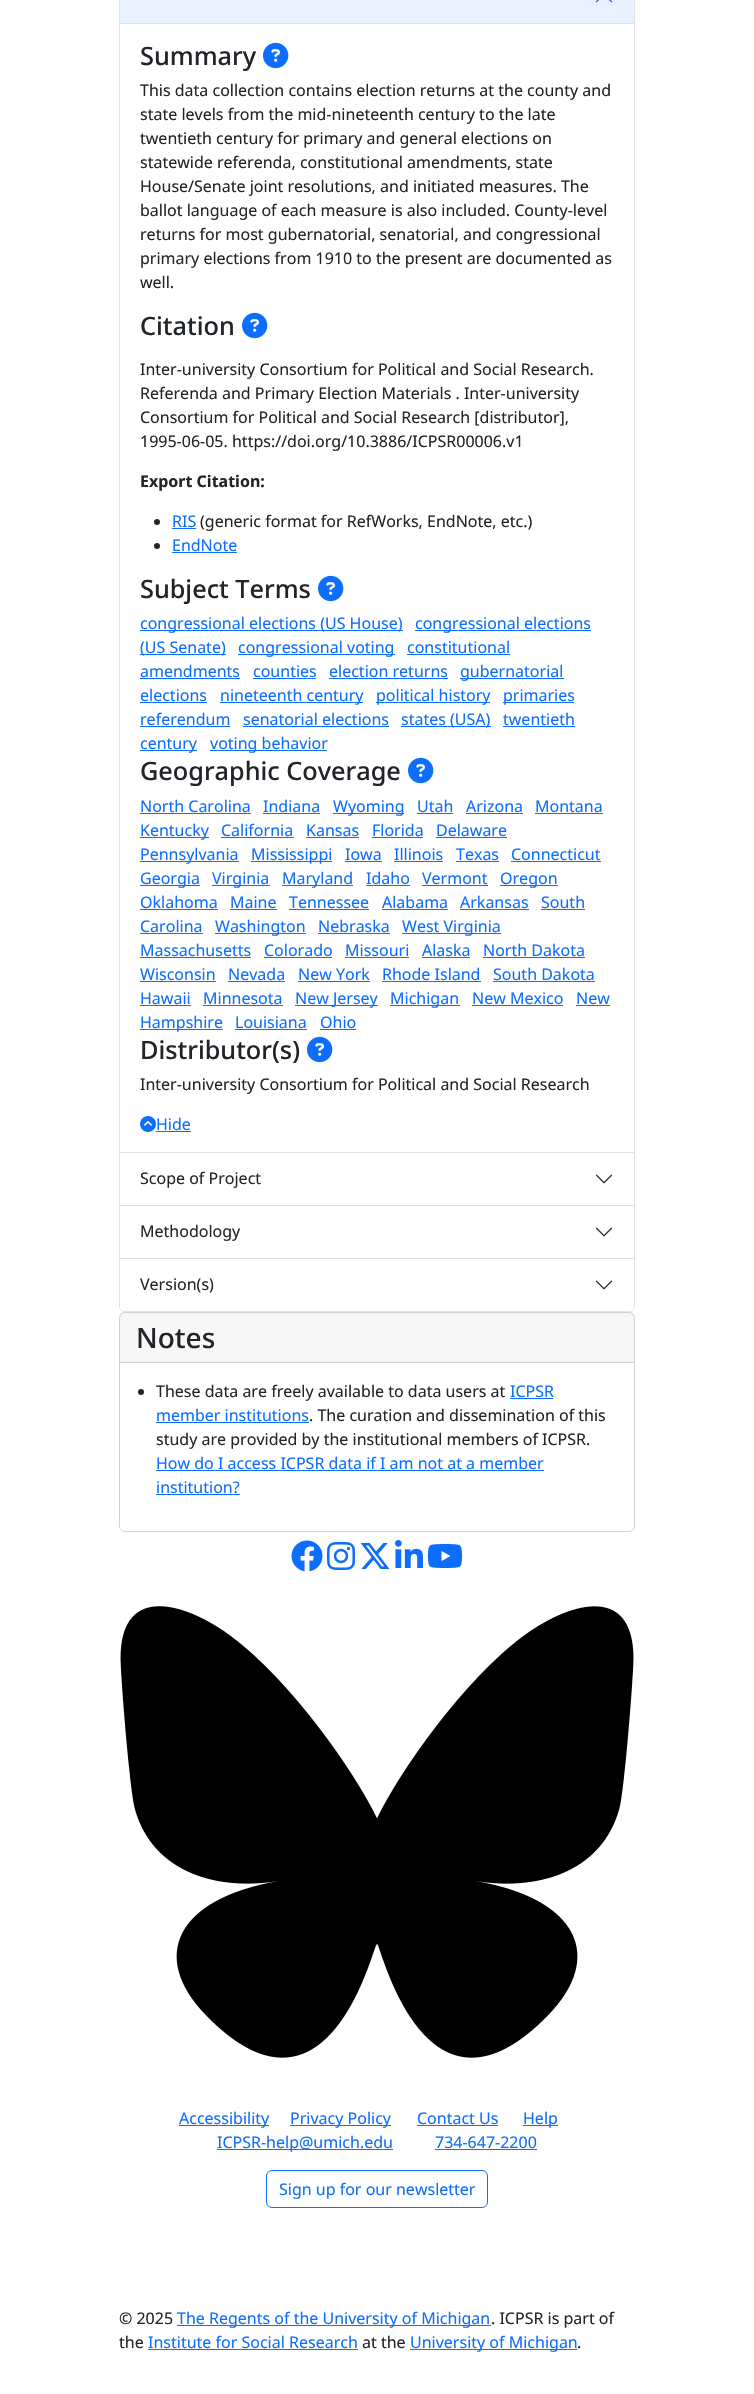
void draw(SkCanvas* canvas) {
    SkPaint paint;
    paint.setAntiAlias(true);
    canvas->clear(0xFFFFFFFF);
    paint.setStyle(SkPaint::kStroke_Style);
    paint.setStrokeWidth(1);
    paint.setColor(0xFFDEE2E6);
    canvas->drawRect(SkRect::MakeXYWH(119.5f, -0.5f, 515, 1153), paint);
    paint.setStyle(SkPaint::kFill_Style);
    paint.setColor(0xFFE7F1FF);
    canvas->drawRect(SkRect::MakeXYWH(120, 0, 514, 23), paint);
    paint.setColor(0xFFDEE2E6);
    canvas->drawRect(SkRect::MakeXYWH(120, 23, 514, 1), paint);
    canvas->drawImageRect(SkImages::DeferredFromEncodedData(SkData::MakeFromFileName("img1.png")), SkRect::MakeXYWH(595, 0, 18, 3), SkSamplingOptions());
    SkFont font1(fontMgr->matchFamilyStyle("Noto Sans", SkFontStyle(500, SkFontStyle::kNormal_Width, SkFontStyle::kUpright_Slant)), 25.25f);
    font1.setSubpixel(true);
    paint.setColor(0xFF212529);
    canvas->drawString("Summary", 140, 65, font1, paint);
    canvas->drawImageRect(SkImages::DeferredFromEncodedData(SkData::MakeFromFileName("img2.png")), SkRect::MakeXYWH(263, 42, 26, 27), SkSamplingOptions());
    SkFont font2(fontMgr->matchFamilyStyle("Noto Sans", SkFontStyle::Normal()), 16);
    font2.setSubpixel(true);
    canvas->drawString("This data collection contains election returns at the county and", 140, 96, font2, paint);
    canvas->drawString("state levels from the mid-nineteenth century to the late", 140, 120, font2, paint);
    canvas->drawString("twentieth century for primary and general elections on", 140, 144, font2, paint);
    canvas->drawString("statewide referenda, constitutional amendments, state", 140, 168, font2, paint);
    canvas->drawString("House/Senate joint resolutions, and initiated measures. The", 140, 192, font2, paint);
    canvas->drawString("ballot language of each measure is also included. County-level", 140, 216, font2, paint);
    canvas->drawString("returns for most gubernatorial, senatorial, and congressional", 140, 240, font2, paint);
    canvas->drawString("primary elections from 1910 to the present are documented as", 140, 264, font2, paint);
    canvas->drawString("well.", 140, 288, font2, paint);
    canvas->drawString("Citation", 140, 335, font1, paint);
    canvas->drawImageRect(SkImages::DeferredFromEncodedData(SkData::MakeFromFileName("img2.png")), SkRect::MakeXYWH(242, 312, 26, 27), SkSamplingOptions());
    canvas->drawString("Inter-university Consortium for Political and Social Research.", 140, 375, font2, paint);
    canvas->drawString("Referenda and Primary Election Materials . Inter-university", 140, 399, font2, paint);
    canvas->drawString("Consortium for Political and Social Research [distributor],", 140, 423, font2, paint);
    canvas->drawString("1995-06-05. https://doi.org/10.3886/ICPSR00006.v1", 140, 447, font2, paint);
    SkFont font3(fontMgr->matchFamilyStyle("Noto Sans", SkFontStyle::Bold()), 16);
    font3.setSubpixel(true);
    canvas->drawString("Export Citation:", 140, 487, font3, paint);
    canvas->drawCircle(157, 522, 3, paint);
    paint.setColor(0xFF0D6EFD);
    canvas->drawString("RIS", 172, 527, font2, paint);
    canvas->drawRect(SkRect::MakeXYWH(172, 528, 24, 1), paint);
    paint.setColor(0xFF212529);
    canvas->drawString("(generic format for RefWorks, EndNote, etc.)", 200, 527, font2, paint);
    canvas->drawCircle(157, 546, 3, paint);
    paint.setColor(0xFF0D6EFD);
    canvas->drawString("EndNote", 172, 551, font2, paint);
    canvas->drawRect(SkRect::MakeXYWH(172, 552, 65, 1), paint);
    paint.setColor(0xFF212529);
    canvas->drawString("Subject Terms", 140, 598, font1, paint);
    canvas->drawImageRect(SkImages::DeferredFromEncodedData(SkData::MakeFromFileName("img2.png")), SkRect::MakeXYWH(318, 575, 26, 27), SkSamplingOptions());
    paint.setColor(0xFF0D6EFD);
    canvas->drawRect(SkRect::MakeXYWH(140, 630, 263, 1), paint);
    canvas->drawString("congressional elections (US House)", 140, 629, font2, paint);
    canvas->drawRect(SkRect::MakeXYWH(415, 630, 176, 1), paint);
    canvas->drawString("congressional elections", 415, 629, font2, paint);
    canvas->drawRect(SkRect::MakeXYWH(140, 654, 86, 1), paint);
    canvas->drawString("(US Senate)", 140, 653, font2, paint);
    canvas->drawRect(SkRect::MakeXYWH(238, 654, 157, 1), paint);
    canvas->drawString("congressional voting", 238, 653, font2, paint);
    canvas->drawString("constitutional", 407, 653, font2, paint);
    canvas->drawRect(SkRect::MakeXYWH(407, 654, 103, 1), paint);
    canvas->drawString("amendments", 140, 677, font2, paint);
    canvas->drawRect(SkRect::MakeXYWH(140, 678, 100, 1), paint);
    canvas->drawString("counties", 253, 677, font2, paint);
    canvas->drawRect(SkRect::MakeXYWH(253, 678, 63, 1), paint);
    canvas->drawString("election returns", 329, 677, font2, paint);
    canvas->drawRect(SkRect::MakeXYWH(329, 678, 119, 1), paint);
    canvas->drawRect(SkRect::MakeXYWH(460, 678, 104, 1), paint);
    canvas->drawString("gubernatorial", 460, 677, font2, paint);
    canvas->drawString("elections", 140, 701, font2, paint);
    canvas->drawRect(SkRect::MakeXYWH(140, 702, 67, 1), paint);
    canvas->drawRect(SkRect::MakeXYWH(220, 702, 143, 1), paint);
    canvas->drawString("nineteenth century", 220, 701, font2, paint);
    canvas->drawRect(SkRect::MakeXYWH(376, 702, 114, 1), paint);
    canvas->drawString("political history", 376, 701, font2, paint);
    canvas->drawRect(SkRect::MakeXYWH(503, 702, 71, 1), paint);
    canvas->drawString("primaries", 503, 701, font2, paint);
    canvas->drawString("referendum", 140, 725, font2, paint);
    canvas->drawRect(SkRect::MakeXYWH(140, 726, 90, 1), paint);
    canvas->drawString("senatorial elections", 243, 725, font2, paint);
    canvas->drawRect(SkRect::MakeXYWH(243, 726, 146, 1), paint);
    canvas->drawRect(SkRect::MakeXYWH(401, 726, 90, 1), paint);
    canvas->drawString("states (USA)", 401, 725, font2, paint);
    canvas->drawString("twentieth", 503, 725, font2, paint);
    canvas->drawRect(SkRect::MakeXYWH(503, 726, 72, 1), paint);
    canvas->drawRect(SkRect::MakeXYWH(140, 750, 57, 1), paint);
    canvas->drawString("century", 140, 749, font2, paint);
    canvas->drawRect(SkRect::MakeXYWH(210, 750, 117, 1), paint);
    canvas->drawString("voting behavior", 210, 749, font2, paint);
    paint.setColor(0xFF212529);
    canvas->drawString("Geographic Coverage", 140, 780, font1, paint);
    canvas->drawImageRect(SkImages::DeferredFromEncodedData(SkData::MakeFromFileName("img2.png")), SkRect::MakeXYWH(408, 757, 26, 27), SkSamplingOptions());
    paint.setColor(0xFF0D6EFD);
    canvas->drawString("North Carolina", 140, 812, font2, paint);
    canvas->drawRect(SkRect::MakeXYWH(140, 813, 111, 1), paint);
    canvas->drawString("Indiana", 263, 812, font2, paint);
    canvas->drawRect(SkRect::MakeXYWH(263, 813, 57, 1), paint);
    canvas->drawRect(SkRect::MakeXYWH(333, 813, 71, 1), paint);
    canvas->drawString("Wyoming", 333, 812, font2, paint);
    canvas->drawString("Utah", 417, 812, font2, paint);
    canvas->drawRect(SkRect::MakeXYWH(417, 813, 36, 1), paint);
    canvas->drawString("Arizona", 466, 812, font2, paint);
    canvas->drawRect(SkRect::MakeXYWH(466, 813, 57, 1), paint);
    canvas->drawString("Montana", 535, 812, font2, paint);
    canvas->drawRect(SkRect::MakeXYWH(535, 813, 68, 1), paint);
    canvas->drawRect(SkRect::MakeXYWH(140, 837, 69, 1), paint);
    canvas->drawString("Kentucky", 140, 836, font2, paint);
    canvas->drawString("California", 221, 836, font2, paint);
    canvas->drawRect(SkRect::MakeXYWH(221, 837, 73, 1), paint);
    canvas->drawString("Kansas", 306, 836, font2, paint);
    canvas->drawRect(SkRect::MakeXYWH(306, 837, 53, 1), paint);
    canvas->drawString("Florida", 372, 836, font2, paint);
    canvas->drawRect(SkRect::MakeXYWH(372, 837, 51, 1), paint);
    canvas->drawString("Delaware", 436, 836, font2, paint);
    canvas->drawRect(SkRect::MakeXYWH(436, 837, 71, 1), paint);
    canvas->drawRect(SkRect::MakeXYWH(140, 861, 99, 1), paint);
    canvas->drawString("Pennsylvania", 140, 860, font2, paint);
    canvas->drawRect(SkRect::MakeXYWH(251, 861, 81, 1), paint);
    canvas->drawString("Mississippi", 251, 860, font2, paint);
    canvas->drawString("Iowa", 345, 860, font2, paint);
    canvas->drawRect(SkRect::MakeXYWH(345, 861, 37, 1), paint);
    canvas->drawString("Illinois", 394, 860, font2, paint);
    canvas->drawRect(SkRect::MakeXYWH(394, 861, 49, 1), paint);
    canvas->drawString("Texas", 456, 860, font2, paint);
    canvas->drawRect(SkRect::MakeXYWH(456, 861, 43, 1), paint);
    canvas->drawString("Connecticut", 511, 860, font2, paint);
    canvas->drawRect(SkRect::MakeXYWH(511, 861, 90, 1), paint);
    canvas->drawRect(SkRect::MakeXYWH(140, 885, 60, 1), paint);
    canvas->drawString("Georgia", 140, 884, font2, paint);
    canvas->drawRect(SkRect::MakeXYWH(212, 885, 58, 1), paint);
    canvas->drawString("Virginia", 212, 884, font2, paint);
    canvas->drawRect(SkRect::MakeXYWH(282, 885, 71, 1), paint);
    canvas->drawString("Maryland", 282, 884, font2, paint);
    canvas->drawString("Idaho", 366, 884, font2, paint);
    canvas->drawRect(SkRect::MakeXYWH(366, 885, 44, 1), paint);
    canvas->drawString("Vermont", 422, 884, font2, paint);
    canvas->drawRect(SkRect::MakeXYWH(422, 885, 66, 1), paint);
    canvas->drawRect(SkRect::MakeXYWH(500, 885, 58, 1), paint);
    canvas->drawString("Oregon", 500, 884, font2, paint);
    canvas->drawString("Oklahoma", 140, 908, font2, paint);
    canvas->drawRect(SkRect::MakeXYWH(140, 909, 78, 1), paint);
    canvas->drawString("Maine", 230, 908, font2, paint);
    canvas->drawRect(SkRect::MakeXYWH(230, 909, 47, 1), paint);
    canvas->drawString("Tennessee", 289, 908, font2, paint);
    canvas->drawRect(SkRect::MakeXYWH(289, 909, 80, 1), paint);
    canvas->drawString("Alabama", 382, 908, font2, paint);
    canvas->drawRect(SkRect::MakeXYWH(382, 909, 66, 1), paint);
    canvas->drawString("Arkansas", 460, 908, font2, paint);
    canvas->drawRect(SkRect::MakeXYWH(460, 909, 69, 1), paint);
    canvas->drawString("South", 541, 908, font2, paint);
    canvas->drawRect(SkRect::MakeXYWH(541, 909, 44, 1), paint);
    canvas->drawString("Carolina", 140, 932, font2, paint);
    canvas->drawRect(SkRect::MakeXYWH(140, 933, 63, 1), paint);
    canvas->drawRect(SkRect::MakeXYWH(215, 933, 91, 1), paint);
    canvas->drawString("Washington", 215, 932, font2, paint);
    canvas->drawString("Nebraska", 318, 932, font2, paint);
    canvas->drawRect(SkRect::MakeXYWH(318, 933, 72, 1), paint);
    canvas->drawRect(SkRect::MakeXYWH(402, 933, 99, 1), paint);
    canvas->drawString("West Virginia", 402, 932, font2, paint);
    canvas->drawString("Massachusetts", 140, 956, font2, paint);
    canvas->drawRect(SkRect::MakeXYWH(140, 957, 111, 1), paint);
    canvas->drawString("Colorado", 264, 956, font2, paint);
    canvas->drawRect(SkRect::MakeXYWH(264, 957, 68, 1), paint);
    canvas->drawString("Missouri", 345, 956, font2, paint);
    canvas->drawRect(SkRect::MakeXYWH(345, 957, 64, 1), paint);
    canvas->drawString("Alaska", 422, 956, font2, paint);
    canvas->drawRect(SkRect::MakeXYWH(422, 957, 48, 1), paint);
    canvas->drawString("North Dakota", 483, 956, font2, paint);
    canvas->drawRect(SkRect::MakeXYWH(483, 957, 102, 1), paint);
    canvas->drawString("Wisconsin", 140, 980, font2, paint);
    canvas->drawRect(SkRect::MakeXYWH(140, 981, 76, 1), paint);
    canvas->drawString("Nevada", 228, 980, font2, paint);
    canvas->drawRect(SkRect::MakeXYWH(228, 981, 57, 1), paint);
    canvas->drawString("New York", 298, 980, font2, paint);
    canvas->drawRect(SkRect::MakeXYWH(298, 981, 72, 1), paint);
    canvas->drawString("Rhode Island", 382, 980, font2, paint);
    canvas->drawRect(SkRect::MakeXYWH(382, 981, 99, 1), paint);
    canvas->drawString("South Dakota", 493, 980, font2, paint);
    canvas->drawRect(SkRect::MakeXYWH(493, 981, 102, 1), paint);
    canvas->drawString("Hawaii", 140, 1004, font2, paint);
    canvas->drawRect(SkRect::MakeXYWH(140, 1005, 51, 1), paint);
    canvas->drawString("Minnesota", 203, 1004, font2, paint);
    canvas->drawRect(SkRect::MakeXYWH(203, 1005, 80, 1), paint);
    canvas->drawRect(SkRect::MakeXYWH(295, 1005, 83, 1), paint);
    canvas->drawString("New Jersey", 295, 1004, font2, paint);
    canvas->drawRect(SkRect::MakeXYWH(390, 1005, 70, 1), paint);
    canvas->drawString("Michigan", 390, 1004, font2, paint);
    canvas->drawString("New Mexico", 472, 1004, font2, paint);
    canvas->drawRect(SkRect::MakeXYWH(472, 1005, 91, 1), paint);
    canvas->drawString("New", 576, 1004, font2, paint);
    canvas->drawRect(SkRect::MakeXYWH(576, 1005, 34, 1), paint);
    canvas->drawRect(SkRect::MakeXYWH(140, 1029, 83, 1), paint);
    canvas->drawString("Hampshire", 140, 1028, font2, paint);
    canvas->drawString("Louisiana", 235, 1028, font2, paint);
    canvas->drawRect(SkRect::MakeXYWH(235, 1029, 72, 1), paint);
    canvas->drawString("Ohio", 320, 1028, font2, paint);
    canvas->drawRect(SkRect::MakeXYWH(320, 1029, 36, 1), paint);
    paint.setColor(0xFF212529);
    canvas->drawString("Distributor(s)", 140, 1059, font1, paint);
    canvas->drawImageRect(SkImages::DeferredFromEncodedData(SkData::MakeFromFileName("img2.png")), SkRect::MakeXYWH(307, 1036, 26, 27), SkSamplingOptions());
    canvas->drawString("Inter-university Consortium for Political and Social Research", 140, 1090, font2, paint);
    canvas->drawImageRect(SkImages::DeferredFromEncodedData(SkData::MakeFromFileName("img3.png")), SkRect::MakeXYWH(140, 1116, 16, 16), SkSamplingOptions());
    paint.setColor(0xFF0D6EFD);
    canvas->drawString("Hide", 156, 1130, font2, paint);
    canvas->drawRect(SkRect::MakeXYWH(156, 1131, 35, 1), paint);
    paint.setColor(0xFFDEE2E6);
    canvas->drawRect(SkRect::MakeXYWH(634, 1153, 1, 106), paint);
    canvas->drawRect(SkRect::MakeXYWH(119, 1205, 516, 1), paint);
    canvas->drawRect(SkRect::MakeXYWH(119, 1153, 1, 53), paint);
    paint.setColor(0xFF212529);
    canvas->drawString("Scope of Project", 140, 1184, font2, paint);
    canvas->drawImageRect(SkImages::DeferredFromEncodedData(SkData::MakeFromFileName("img4.png")), SkRect::MakeXYWH(595, 1174, 18, 10), SkSamplingOptions());
    paint.setColor(0xFFDEE2E6);
    canvas->drawRect(SkRect::MakeXYWH(119, 1258, 516, 1), paint);
    canvas->drawRect(SkRect::MakeXYWH(119, 1206, 1, 53), paint);
    paint.setColor(0xFF212529);
    canvas->drawString("Methodology", 140, 1237, font2, paint);
    canvas->drawImageRect(SkImages::DeferredFromEncodedData(SkData::MakeFromFileName("img4.png")), SkRect::MakeXYWH(595, 1227, 18, 10), SkSamplingOptions());
    paint.setColor(0xFFDEE2E6);
    canvas->drawPath(SkPathBuilder(SkPathFillType::kEvenOdd).moveTo(119, 1259).lineTo(635, 1259).lineTo(635, 1306).cubicTo(635, 1309, 632, 1312, 629, 1312).lineTo(125, 1312).cubicTo(122, 1312, 119, 1309, 119, 1306).close().moveTo(120, 1259).lineTo(634, 1259).lineTo(634, 1306).cubicTo(634, 1309, 632, 1311, 629, 1311).lineTo(125, 1311).cubicTo(122, 1311, 120, 1309, 120, 1306).close().detach(), paint);
    paint.setColor(0xFFFFFFFF);
    canvas->drawPath(SkPathBuilder().moveTo(120, 1259).lineTo(634, 1259).lineTo(634, 1306).cubicTo(634, 1309, 632, 1311, 629, 1311).lineTo(125, 1311).cubicTo(122, 1311, 120, 1309, 120, 1306).close().detach(), paint);
    paint.setColor(0xFF212529);
    canvas->drawString("Version(s)", 140, 1290, font2, paint);
    canvas->drawImageRect(SkImages::DeferredFromEncodedData(SkData::MakeFromFileName("img4.png")), SkRect::MakeXYWH(595, 1280, 18, 10), SkSamplingOptions());
    paint.setStyle(SkPaint::kStroke_Style);
    paint.setColor(0xFFD2D2D2);
    canvas->drawRoundRect(SkRect::MakeXYWH(119.5f, 1312.5f, 515, 219), 5.5f, 5.5f, paint);
    paint.setStyle(SkPaint::kFill_Style);
    paint.setColor(0x08000000);
    canvas->drawRect(SkRect::MakeXYWH(120, 1313, 514, 49), paint);
    paint.setColor(0xFFCCCCCC);
    canvas->drawRect(SkRect::MakeXYWH(120, 1362, 514, 1), paint);
    SkFont font4(fontMgr->matchFamilyStyle("Noto Sans", SkFontStyle(500, SkFontStyle::kNormal_Width, SkFontStyle::kUpright_Slant)), 28);
    font4.setSubpixel(true);
    paint.setColor(0xFF212529);
    canvas->drawString("Notes", 136, 1348, font4, paint);
    canvas->drawCircle(141, 1392, 3, paint);
    canvas->drawString("These data are freely available to data users at", 156, 1397, font2, paint);
    paint.setColor(0xFF0D6EFD);
    canvas->drawString("ICPSR", 510, 1397, font2, paint);
    canvas->drawRect(SkRect::MakeXYWH(510, 1398, 43, 1), paint);
    canvas->drawString("member institutions", 156, 1421, font2, paint);
    canvas->drawRect(SkRect::MakeXYWH(156, 1422, 153, 1), paint);
    paint.setColor(0xFF212529);
    canvas->drawString(". The curation and dissemination of this", 309, 1421, font2, paint);
    canvas->drawString("study are provided by the institutional members of ICPSR.", 156, 1445, font2, paint);
    paint.setColor(0xFF0D6EFD);
    canvas->drawString("How do I access ICPSR data if I am not at a member", 156, 1469, font2, paint);
    canvas->drawRect(SkRect::MakeXYWH(156, 1470, 388, 1), paint);
    canvas->drawString("institution?", 156, 1493, font2, paint);
    canvas->drawRect(SkRect::MakeXYWH(156, 1494, 84, 1), paint);
    canvas->drawImageRect(SkImages::DeferredFromEncodedData(SkData::MakeFromFileName("img5.png")), SkRect::MakeXYWH(291, 1540, 32, 32), SkSamplingOptions());
    canvas->drawImageRect(SkImages::DeferredFromEncodedData(SkData::MakeFromFileName("img6.png")), SkRect::MakeXYWH(327, 1542, 28, 28), SkSamplingOptions());
    canvas->drawImageRect(SkImages::DeferredFromEncodedData(SkData::MakeFromFileName("img7.png")), SkRect::MakeXYWH(360, 1543, 30, 26), SkSamplingOptions());
    canvas->drawImageRect(SkImages::DeferredFromEncodedData(SkData::MakeFromFileName("img8.png")), SkRect::MakeXYWH(395, 1540, 28, 28), SkSamplingOptions());
    canvas->drawImageRect(SkImages::DeferredFromEncodedData(SkData::MakeFromFileName("img9.png")), SkRect::MakeXYWH(427, 1544, 36, 24), SkSamplingOptions());
    canvas->drawImageRect(SkImages::DeferredFromEncodedData(SkData::MakeFromFileName("img10.png")), SkRect::MakeXYWH(120, 1606, 514, 452), SkSamplingOptions());
    canvas->drawRect(SkRect::MakeXYWH(179, 2125, 90, 1), paint);
    canvas->drawString("Accessibility", 179, 2124, font2, paint);
    canvas->drawRect(SkRect::MakeXYWH(290, 2125, 101, 1), paint);
    canvas->drawString("Privacy Policy", 290, 2124, font2, paint);
    canvas->drawString("Contact Us", 417, 2124, font2, paint);
    canvas->drawRect(SkRect::MakeXYWH(417, 2125, 81, 1), paint);
    canvas->drawRect(SkRect::MakeXYWH(523, 2125, 35, 1), paint);
    canvas->drawString("Help", 523, 2124, font2, paint);
    canvas->drawRect(SkRect::MakeXYWH(217, 2149, 176, 1), paint);
    canvas->drawString("ICPSR-help@umich.edu", 217, 2148, font2, paint);
    canvas->drawString("734-647-2200", 435, 2148, font2, paint);
    canvas->drawRect(SkRect::MakeXYWH(435, 2149, 102, 1), paint);
    paint.setStyle(SkPaint::kStroke_Style);
    canvas->drawRoundRect(SkRect::MakeXYWH(266.5f, 2170.5f, 221, 37), 5.5f, 5.5f, paint);
    paint.setStyle(SkPaint::kFill_Style);
    canvas->drawString("Sign up for our newsletter", 279, 2195, font2, paint);
    paint.setColor(0xFF212529);
    canvas->drawString("© 2025", 119, 2324, font2, paint);
    paint.setColor(0xFF0D6EFD);
    canvas->drawRect(SkRect::MakeXYWH(177, 2325, 314, 1), paint);
    canvas->drawString("The Regents of the University of Michigan", 177, 2324, font2, paint);
    paint.setColor(0xFF212529);
    canvas->drawString(". ICPSR is part of", 491, 2324, font2, paint);
    canvas->drawString("the", 119, 2348, font2, paint);
    paint.setColor(0xFF0D6EFD);
    canvas->drawString("Institute for Social Research", 148, 2348, font2, paint);
    canvas->drawRect(SkRect::MakeXYWH(148, 2349, 210, 1), paint);
    paint.setColor(0xFF212529);
    canvas->drawString("at the", 362, 2348, font2, paint);
    paint.setColor(0xFF0D6EFD);
    canvas->drawRect(SkRect::MakeXYWH(410, 2349, 167, 1), paint);
    canvas->drawString("University of Michigan", 410, 2348, font2, paint);
    paint.setColor(0xFF212529);
    canvas->drawString(".", 577, 2348, font2, paint);
}
